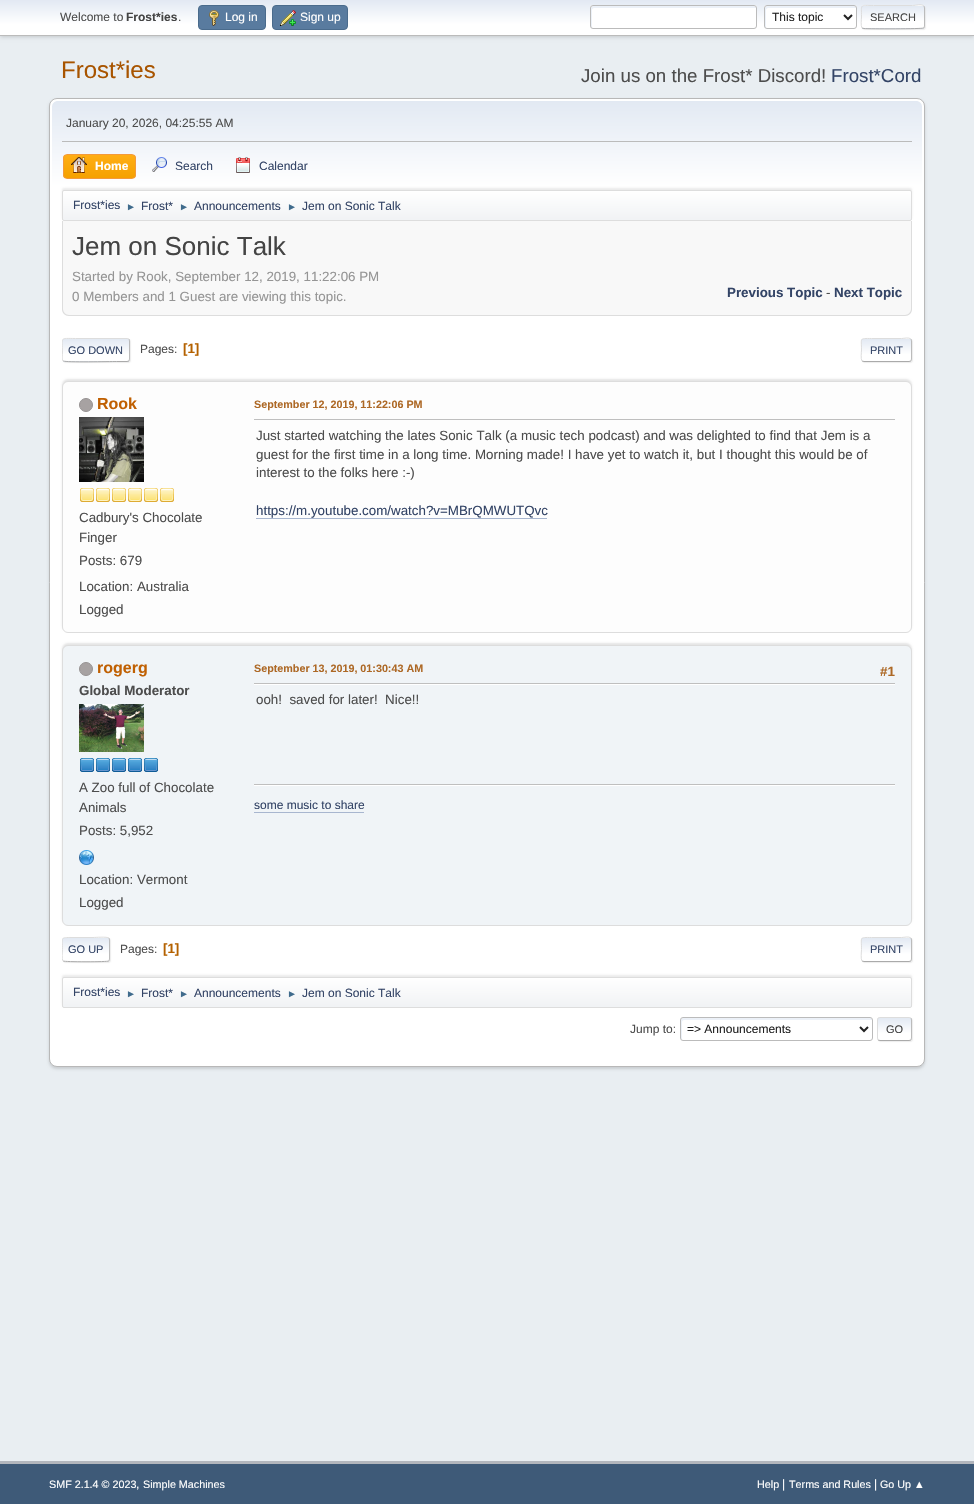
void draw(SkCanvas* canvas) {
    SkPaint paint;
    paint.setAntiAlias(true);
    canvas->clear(0xFFE9EEF2);
    paint.setColor(0x29000000);
    paint.setMaskFilter(SkMaskFilter::MakeBlur(kNormal_SkBlurStyle, 2));
    canvas->drawRect(SkRect::MakeXYWH(0, 1, 974, 36), paint);
    paint.setMaskFilter(nullptr);
    {
        const SkColor colors[] = {0xFFE2E9F3, 0xFFFFFFFF};
        const float stops[] = {0, 0.7f};
        const SkPoint ends[] = {{487, 0}, {487, 35}};
        paint.setShader(SkGradientShader::MakeLinear(ends, colors, stops, 2, SkTileMode::kClamp));
        paint.setAlpha(255);
    }
    canvas->drawRect(SkRect::MakeXYWH(0, 0, 974, 35), paint);
    paint.setShader(nullptr);
    paint.setColor(0xFFBBBBBB);
    canvas->drawRect(SkRect::MakeXYWH(0, 35, 974, 1), paint);
    SkFont font1(fontMgr->matchFamilyStyle("Liberation Sans", SkFontStyle::Normal()), 12);
    font1.setSubpixel(true);
    paint.setColor(0xFF4D4D4D);
    canvas->drawString("Welcome to", 60, 21, font1, paint);
    SkFont font2(fontMgr->matchFamilyStyle("Liberation Sans", SkFontStyle::Bold()), 12);
    font2.setSubpixel(true);
    paint.setColor(0xFF444444);
    canvas->drawString("Frost*ies", 126, 21, font2, paint);
    paint.setColor(0xFF4D4D4D);
    canvas->drawString(".", 178, 21, font1, paint);
    paint.setColor(0xFF597B9F);
    canvas->drawRoundRect(SkRect::MakeXYWH(198.5f, 5.5f, 67, 24), 3.5f, 3.5f, paint);
    paint.setStyle(SkPaint::kStroke_Style);
    paint.setStrokeWidth(1);
    paint.setColor(0xFF4A6B8C);
    canvas->drawRoundRect(SkRect::MakeXYWH(198.5f, 5.5f, 67, 24), 3.5f, 3.5f, paint);
    canvas->drawImageRect(SkImages::DeferredFromEncodedData(SkData::MakeFromFileName("img1.png")), SkRect::MakeXYWH(209, 10, 10, 16), SkSamplingOptions());
    paint.setStyle(SkPaint::kFill_Style);
    paint.setColor(0xFFFFFFFF);
    canvas->drawString("Log in", 225, 21, font1, paint);
    paint.setColor(0xFF597B9F);
    canvas->drawRoundRect(SkRect::MakeXYWH(272.5f, 5.5f, 75, 24), 3.5f, 3.5f, paint);
    paint.setStyle(SkPaint::kStroke_Style);
    paint.setColor(0xFF4A6B8C);
    canvas->drawRoundRect(SkRect::MakeXYWH(272.5f, 5.5f, 75, 24), 3.5f, 3.5f, paint);
    canvas->drawImageRect(SkImages::DeferredFromEncodedData(SkData::MakeFromFileName("img2.png")), SkRect::MakeXYWH(280, 10, 16, 16), SkSamplingOptions());
    paint.setStyle(SkPaint::kFill_Style);
    paint.setColor(0xFFFFFFFF);
    canvas->drawString("Sign up", 300, 21, font1, paint);
    canvas->drawRoundRect(SkRect::MakeXYWH(590, 5, 167, 24), 3, 3, paint);
    paint.setColor(0xFFECF1F8);
    canvas->drawPath(SkPathBuilder().moveTo(594, 8).lineTo(756, 8).lineTo(756, 7).lineTo(754, 6).lineTo(593, 6).cubicTo(592, 6, 591, 7, 591, 8).cubicTo(591, 11, 590, 27, 592, 28).lineTo(592, 10).cubicTo(592, 9, 593, 8, 594, 8).close().detach(), paint);
    paint.setStyle(SkPaint::kStroke_Style);
    paint.setColor(0xFFBBBBBB);
    canvas->drawRoundRect(SkRect::MakeXYWH(590.5f, 5.5f, 166, 23), 2.5f, 2.5f, paint);
    paint.setStyle(SkPaint::kFill_Style);
    paint.setColor(0xFFFFFFFF);
    canvas->drawRoundRect(SkRect::MakeXYWH(764, 5, 93, 24), 3, 3, paint);
    paint.setColor(0xFFECF1F8);
    canvas->drawPath(SkPathBuilder().moveTo(768, 8).lineTo(856, 8).cubicTo(856, 3, 844, 6, 840, 6).lineTo(782, 6).cubicTo(763, 6, 765, 2, 765, 17).cubicTo(765, 19, 764, 27, 766, 28).lineTo(766, 10).cubicTo(766, 9, 767, 8, 768, 8).close().detach(), paint);
    paint.setStyle(SkPaint::kStroke_Style);
    paint.setColor(0xFFBBBBBB);
    canvas->drawRoundRect(SkRect::MakeXYWH(764.5f, 5.5f, 92, 23), 2.5f, 2.5f, paint);
    paint.setStrokeWidth(2);
    paint.setColor(0xFF222222);
    canvas->drawPath(SkPathBuilder().moveTo(844, 15).lineTo(848, 19).lineTo(852, 15).detach(), paint);
    paint.setStyle(SkPaint::kFill_Style);
    canvas->drawString("This topic", 772, 21, font1, paint);
    paint.setColor(0x91DDDDDD);
    paint.setMaskFilter(SkMaskFilter::MakeBlur(kNormal_SkBlurStyle, 0.5f));
    canvas->drawRoundRect(SkRect::MakeXYWH(862, 6, 64, 24), 3, 3, paint);
    paint.setMaskFilter(nullptr);
    canvas->save();
    canvas->clipPath(SkPathBuilder().moveTo(864, 5).lineTo(922, 5).cubicTo(923.5f, 5, 925, 6.5f, 925, 8).lineTo(925, 26).cubicTo(925, 27.5f, 923.5f, 29, 922, 29).lineTo(864, 29).cubicTo(862.5f, 29, 861, 27.5f, 861, 26).lineTo(861, 8).cubicTo(861, 6.5f, 862.5f, 5, 864, 5).close().detach(), true);
    {
        const SkColor colors[] = {0xFFE2E9F3, 0xFFFFFFFF};
        const float stops[] = {0, 0.7f};
        const SkPoint ends[] = {{893, -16}, {893, 6}};
        paint.setShader(SkGradientShader::MakeLinear(ends, colors, stops, 2, SkTileMode::kClamp));
        paint.setAlpha(255);
    }
    canvas->drawRect(SkRect::MakeXYWH(861, 5, 64, 1), paint);
    {
        const SkColor colors[] = {0xFFE2E9F3, 0xFFFFFFFF};
        const float stops[] = {0, 0.7f};
        const SkPoint ends[] = {{893, 6}, {893, 28}};
        paint.setShader(SkGradientShader::MakeLinear(ends, colors, stops, 2, SkTileMode::kClamp));
        paint.setAlpha(255);
    }
    canvas->drawRect(SkRect::MakeXYWH(861, 6, 64, 22), paint);
    {
        const SkColor colors[] = {0xFFE2E9F3, 0xFFFFFFFF};
        const float stops[] = {0, 0.7f};
        const SkPoint ends[] = {{893, 28}, {893, 50}};
        paint.setShader(SkGradientShader::MakeLinear(ends, colors, stops, 2, SkTileMode::kClamp));
        paint.setAlpha(255);
    }
    canvas->drawRect(SkRect::MakeXYWH(861, 28, 64, 1), paint);
    canvas->restore();
    paint.setStyle(SkPaint::kStroke_Style);
    paint.setStrokeWidth(1);
    paint.setShader(nullptr);
    paint.setColor(0xFFBBBBBB);
    canvas->drawPath(SkPathBuilder().moveTo(924, 6).cubicTo(924, 6.5f, 924.5f, 7.5f, 924.5f, 8).lineTo(924.5f, 26).cubicTo(924.5f, 26.5f, 924, 27.5f, 924, 28).detach(), paint);
    paint.setColor(0xFFAAAAAA);
    canvas->drawPath(SkPathBuilder().moveTo(924, 28).lineTo(923.5f, 28).cubicTo(922.5f, 29, 869, 29, 864, 28.5f).lineTo(862, 28).detach(), paint);
    paint.setColor(0xFFDDDDDD);
    canvas->drawPath(SkPathBuilder().moveTo(862, 28).cubicTo(860.5f, 26, 861.5f, 19, 861.5f, 17).cubicTo(861.5f, 3.5f, 859.5f, 5.5f, 873.5f, 5.5f).lineTo(912.5f, 5.5f).cubicTo(916, 5.5f, 921, 3.5f, 924, 6).detach(), paint);
    SkFont font3(fontMgr->matchFamilyStyle("Liberation Sans", SkFontStyle::Normal()), 11);
    font3.setSubpixel(true);
    paint.setStyle(SkPaint::kFill_Style);
    paint.setColor(0xFF444444);
    canvas->drawString("SEARCH", 870, 21, font3, paint);
    SkFont font4(fontMgr->matchFamilyStyle("Liberation Sans", SkFontStyle::Normal()), 24);
    font4.setSubpixel(true);
    paint.setColor(0xFFA85400);
    canvas->drawString("Frost*ies", 61, 78, font4, paint);
    SkFont font5(fontMgr->matchFamilyStyle("Liberation Sans", SkFontStyle::Normal()), 18.7f);
    font5.setSubpixel(true);
    paint.setColor(0xFF4D4D4D);
    canvas->drawString("Join us on the Frost* Discord!", 581, 82, font5, paint);
    paint.setColor(0xFF334466);
    canvas->drawString("Frost*Cord", 831, 82, font5, paint);
    paint.setColor(0x24000000);
    paint.setMaskFilter(SkMaskFilter::MakeBlur(kNormal_SkBlurStyle, 1.5f));
    canvas->drawRoundRect(SkRect::MakeXYWH(49, 100, 876, 969), 8, 8, paint);
    paint.setMaskFilter(nullptr);
    paint.setColor(0xFFFFFFFF);
    canvas->drawRoundRect(SkRect::MakeXYWH(49.5f, 98.5f, 875, 968), 7.5f, 7.5f, paint);
    paint.setStyle(SkPaint::kStroke_Style);
    paint.setColor(0xFFB8B8B8);
    canvas->drawRoundRect(SkRect::MakeXYWH(49.5f, 98.5f, 875, 968), 7.5f, 7.5f, paint);
    paint.setStyle(SkPaint::kFill_Style);
    {
        const SkColor colors[] = {0xFFE2E9F3, 0xFFFFFFFF};
        const float stops[] = {0, 0.7f};
        const SkPoint ends[] = {{487, 101}, {487, 223}};
        paint.setShader(SkGradientShader::MakeLinear(ends, colors, stops, 2, SkTileMode::kClamp));
        paint.setAlpha(255);
    }
    canvas->drawPath(SkPathBuilder().moveTo(58, 101).lineTo(916, 101).cubicTo(919.5f, 101, 922, 103.5f, 922, 107).lineTo(922, 223).lineTo(52, 223).lineTo(52, 107).cubicTo(52, 103.5f, 54.5f, 101, 58, 101).close().detach(), paint);
    paint.setShader(nullptr);
    paint.setColor(0xFFBBBBBB);
    canvas->drawRect(SkRect::MakeXYWH(62, 141, 850, 1), paint);
    paint.setColor(0xFF4D4D4D);
    canvas->drawString("January 20, 2026, 04:25:55 AM", 66, 127, font1, paint);
    canvas->save();
    canvas->clipPath(SkPathBuilder().moveTo(67, 154).lineTo(132, 154).cubicTo(134, 154, 136, 156, 136, 158).lineTo(136, 175).cubicTo(136, 177, 134, 179, 132, 179).lineTo(67, 179).cubicTo(65, 179, 63, 177, 63, 175).lineTo(63, 158).cubicTo(63, 156, 65, 154, 67, 154).close().detach(), true);
    {
        const SkColor colors[] = {0xFFFFAE14, 0xFFF5A100};
        const float stops[] = {0, 1};
        const SkPoint ends[] = {{100, 155}, {100, 178}};
        paint.setShader(SkGradientShader::MakeLinear(ends, colors, stops, 2, SkTileMode::kClamp));
        paint.setAlpha(255);
    }
    canvas->drawRect(SkRect::MakeXYWH(63, 155, 73, 23), paint);
    canvas->restore();
    paint.setStyle(SkPaint::kStroke_Style);
    paint.setShader(nullptr);
    paint.setColor(0xFFF49A3A);
    canvas->drawRoundRect(SkRect::MakeXYWH(63.5f, 154.5f, 72, 24), 3.5f, 3.5f, paint);
    canvas->drawImageRect(SkImages::DeferredFromEncodedData(SkData::MakeFromFileName("img3.png")), SkRect::MakeXYWH(71, 157, 16, 16), SkSamplingOptions());
    paint.setStyle(SkPaint::kFill_Style);
    paint.setColor(0xFFFFFFFF);
    canvas->drawString("Home", 95, 170, font2, paint);
    canvas->drawImageRect(SkImages::DeferredFromEncodedData(SkData::MakeFromFileName("img4.png")), SkRect::MakeXYWH(152, 157, 15, 15), SkSamplingOptions());
    paint.setColor(0xFF334466);
    canvas->drawString("Search", 175, 170, font1, paint);
    canvas->drawImageRect(SkImages::DeferredFromEncodedData(SkData::MakeFromFileName("img5.png")), SkRect::MakeXYWH(236, 157, 14, 16), SkSamplingOptions());
    canvas->drawString("Calendar", 259, 170, font1, paint);
    paint.setColor(0x14000000);
    paint.setMaskFilter(SkMaskFilter::MakeBlur(kNormal_SkBlurStyle, 1));
    canvas->drawRoundRect(SkRect::MakeXYWH(62, 188, 850, 31), 2, 2, paint);
    paint.setMaskFilter(nullptr);
    canvas->save();
    canvas->clipPath(SkPathBuilder().moveTo(64, 190).lineTo(910, 190).cubicTo(911, 190, 912, 191, 912, 192).lineTo(912, 219).cubicTo(912, 220, 911, 221, 910, 221).lineTo(64, 221).cubicTo(63, 221, 62, 220, 62, 219).lineTo(62, 192).cubicTo(62, 191, 63, 190, 64, 190).close().detach(), true);
    {
        const SkColor colors[] = {0xFFFFFFFF, 0xFFF1F3F5};
        const float stops[] = {0, 0.95f};
        const SkPoint ends[] = {{487, 191}, {487, 220}};
        paint.setShader(SkGradientShader::MakeLinear(ends, colors, stops, 2, SkTileMode::kClamp));
        paint.setAlpha(255);
    }
    canvas->drawRect(SkRect::MakeXYWH(62, 191, 850, 29), paint);
    canvas->restore();
    paint.setStyle(SkPaint::kStroke_Style);
    paint.setShader(nullptr);
    paint.setColor(0xFFDDDDDD);
    canvas->drawRoundRect(SkRect::MakeXYWH(62.5f, 190.5f, 849, 30), 1.5f, 1.5f, paint);
    paint.setStyle(SkPaint::kFill_Style);
    paint.setColor(0xFF334466);
    canvas->drawString("Frost*ies", 73, 209, font1, paint);
    SkFont font6(fontMgr->matchFamilyStyle("Liberation Sans", SkFontStyle::Normal()), 10);
    font6.setSubpixel(true);
    paint.setColor(0xFF3F6B8C);
    canvas->drawString("►", 126, 210, font6, paint);
    paint.setColor(0xFF334466);
    canvas->drawString("Frost*", 141, 210, font1, paint);
    paint.setColor(0xFF3F6B8C);
    canvas->drawString("►", 179, 210, font6, paint);
    paint.setColor(0xFF334466);
    canvas->drawString("Announcements", 194, 210, font1, paint);
    paint.setColor(0xFF3F6B8C);
    canvas->drawString("►", 287, 210, font6, paint);
    paint.setColor(0xFF334466);
    canvas->drawString("Jem on Sonic Talk", 302, 210, font1, paint);
    paint.setColor(0xFFF8F8F8);
    canvas->drawPath(SkPathBuilder().moveTo(62, 221).lineTo(912, 221).lineTo(912, 309).cubicTo(912, 313, 909, 316, 905, 316).lineTo(69, 316).cubicTo(65, 316, 62, 313, 62, 309).close().detach(), paint);
    paint.setColor(0xFFDDDDDD);
    canvas->drawPath(SkPathBuilder(SkPathFillType::kEvenOdd).moveTo(62, 221).lineTo(912, 221).lineTo(912, 309).cubicTo(912, 313, 909, 316, 905, 316).lineTo(69, 316).cubicTo(65, 316, 62, 313, 62, 309).close().moveTo(63, 221).lineTo(911, 221).lineTo(911, 309).cubicTo(911, 312, 908, 315, 905, 315).lineTo(69, 315).cubicTo(66, 315, 63, 312, 63, 309).close().detach(), paint);
    SkFont font7(fontMgr->matchFamilyStyle("Liberation Sans", SkFontStyle::Normal()), 26);
    font7.setSubpixel(true);
    paint.setColor(0xFF444444);
    canvas->drawString("Jem on Sonic Talk", 72, 255, font7, paint);
    SkFont font8(fontMgr->matchFamilyStyle("Liberation Sans", SkFontStyle::Normal()), 13.35f);
    font8.setSubpixel(true);
    paint.setColor(0xFF959595);
    canvas->drawString("Started by Rook, September 12, 2019, 11:22:06 PM", 72, 281, font8, paint);
    canvas->drawString("0 Members and 1 Guest are viewing this topic.", 72, 301, font8, paint);
    SkFont font9(fontMgr->matchFamilyStyle("Liberation Sans", SkFontStyle::Bold()), 13.35f);
    font9.setSubpixel(true);
    paint.setColor(0xFF334466);
    canvas->drawString("Previous Topic", 727, 297, font9, paint);
    paint.setColor(0xFF4D4D4D);
    canvas->drawString("-", 826, 297, font8, paint);
    paint.setColor(0xFF334466);
    canvas->drawString("Next Topic", 834, 297, font9, paint);
    paint.setColor(0x91DDDDDD);
    paint.setMaskFilter(SkMaskFilter::MakeBlur(kNormal_SkBlurStyle, 0.5f));
    canvas->drawRoundRect(SkRect::MakeXYWH(63, 339, 68, 24), 3, 3, paint);
    paint.setMaskFilter(nullptr);
    canvas->save();
    canvas->clipPath(SkPathBuilder().moveTo(65, 338).lineTo(127, 338).cubicTo(128.5f, 338, 130, 339.5f, 130, 341).lineTo(130, 359).cubicTo(130, 360.5f, 128.5f, 362, 127, 362).lineTo(65, 362).cubicTo(63.5f, 362, 62, 360.5f, 62, 359).lineTo(62, 341).cubicTo(62, 339.5f, 63.5f, 338, 65, 338).close().detach(), true);
    {
        const SkColor colors[] = {0xFFE2E9F3, 0xFFFFFFFF};
        const float stops[] = {0, 0.7f};
        const SkPoint ends[] = {{96, 339}, {96, 361}};
        paint.setShader(SkGradientShader::MakeLinear(ends, colors, stops, 2, SkTileMode::kClamp));
        paint.setAlpha(255);
    }
    canvas->drawRect(SkRect::MakeXYWH(62, 339, 68, 22), paint);
    {
        const SkColor colors[] = {0xFFE2E9F3, 0xFFFFFFFF};
        const float stops[] = {0, 0.7f};
        const SkPoint ends[] = {{96, 361}, {96, 383}};
        paint.setShader(SkGradientShader::MakeLinear(ends, colors, stops, 2, SkTileMode::kClamp));
        paint.setAlpha(255);
    }
    canvas->drawRect(SkRect::MakeXYWH(62, 361, 68, 1), paint);
    canvas->restore();
    paint.setStyle(SkPaint::kStroke_Style);
    paint.setShader(nullptr);
    paint.setColor(0xFFBBBBBB);
    canvas->drawPath(SkPathBuilder().moveTo(129, 339).cubicTo(129, 339.5f, 129.5f, 340.5f, 129.5f, 341).lineTo(129.5f, 359).cubicTo(129.5f, 359.5f, 129, 360.5f, 129, 361).detach(), paint);
    paint.setColor(0xFFAAAAAA);
    canvas->drawPath(SkPathBuilder().moveTo(129, 361).lineTo(127, 361.5f).lineTo(116.5f, 361.5f).cubicTo(110.5f, 361.5f, 65.5f, 362.5f, 63.5f, 361).lineTo(63, 361).detach(), paint);
    canvas->save();
    canvas->clipRect(SkRect::MakeXYWH(62, 331, 850, 38));
    paint.setColor(0xFFDDDDDD);
    canvas->drawPath(SkPathBuilder().moveTo(63, 361).cubicTo(61.5f, 359, 62.5f, 355, 62.5f, 353).cubicTo(62.5f, 336.5f, 59, 338.5f, 75.5f, 338.5f).lineTo(127, 338.5f).lineTo(129, 339).detach(), paint);
    canvas->restore();
    paint.setStyle(SkPaint::kFill_Style);
    paint.setColor(0xFF334466);
    canvas->drawString("GO DOWN", 68, 354, font3, paint);
    paint.setColor(0xFF4D4D4D);
    canvas->drawString("Pages:", 140, 353, font1, paint);
    paint.setColor(0xFFB46100);
    canvas->drawString("[1]", 183, 353, font9, paint);
    canvas->save();
    canvas->clipPath(SkPathBuilder(SkPathFillType::kEvenOdd).moveTo(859, 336).lineTo(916, 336).lineTo(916, 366).lineTo(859, 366).close().moveTo(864, 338).lineTo(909, 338).cubicTo(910.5f, 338, 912, 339.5f, 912, 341).lineTo(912, 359).cubicTo(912, 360.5f, 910.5f, 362, 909, 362).lineTo(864, 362).cubicTo(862.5f, 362, 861, 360.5f, 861, 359).lineTo(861, 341).cubicTo(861, 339.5f, 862.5f, 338, 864, 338).close().detach(), true);
    paint.setColor(0x91DDDDDD);
    paint.setMaskFilter(SkMaskFilter::MakeBlur(kNormal_SkBlurStyle, 0.5f));
    canvas->drawRoundRect(SkRect::MakeXYWH(862, 339, 51, 24), 3, 3, paint);
    paint.setMaskFilter(nullptr);
    canvas->restore();
    paint.setColor(0xFFFFFFFF);
    canvas->drawRoundRect(SkRect::MakeXYWH(861, 338, 51, 24), 3, 3, paint);
    canvas->save();
    canvas->clipPath(SkPathBuilder().moveTo(864, 338).lineTo(909, 338).cubicTo(910.5f, 338, 912, 339.5f, 912, 341).lineTo(912, 359).cubicTo(912, 360.5f, 910.5f, 362, 909, 362).lineTo(864, 362).cubicTo(862.5f, 362, 861, 360.5f, 861, 359).lineTo(861, 341).cubicTo(861, 339.5f, 862.5f, 338, 864, 338).close().detach(), true);
    {
        const SkColor colors[] = {0xFFE2E9F3, 0xFFFFFFFF};
        const float stops[] = {0, 0.7f};
        const SkPoint ends[] = {{887, 339}, {887, 361}};
        paint.setShader(SkGradientShader::MakeLinear(ends, colors, stops, 2, SkTileMode::kClamp));
        paint.setAlpha(255);
    }
    canvas->drawRect(SkRect::MakeXYWH(861, 339, 51, 22), paint);
    canvas->restore();
    paint.setStyle(SkPaint::kStroke_Style);
    paint.setShader(nullptr);
    paint.setColor(0xFFBBBBBB);
    canvas->drawPath(SkPathBuilder().moveTo(911, 339).cubicTo(911, 339.5f, 911.5f, 340.5f, 911.5f, 341).lineTo(911.5f, 359).cubicTo(911.5f, 359.5f, 911, 360.5f, 911, 361).detach(), paint);
    paint.setColor(0xFFAAAAAA);
    canvas->drawPath(SkPathBuilder().moveTo(911, 361).lineTo(909, 361.5f).lineTo(864, 361.5f).lineTo(862, 361).detach(), paint);
    paint.setColor(0xFFDDDDDD);
    canvas->drawPath(SkPathBuilder().moveTo(862, 361).cubicTo(860.5f, 359, 861.5f, 352, 861.5f, 350).cubicTo(861.5f, 337.5f, 859, 338.5f, 871.5f, 338.5f).lineTo(901.5f, 338.5f).cubicTo(904.5f, 338.5f, 908.5f, 337, 911, 339).detach(), paint);
    paint.setStyle(SkPaint::kFill_Style);
    paint.setColor(0xFF334466);
    canvas->drawString("PRINT", 870, 354, font3, paint);
    paint.setColor(0x1A000000);
    paint.setMaskFilter(SkMaskFilter::MakeBlur(kNormal_SkBlurStyle, 1));
    canvas->drawRoundRect(SkRect::MakeXYWH(62, 379, 850, 252), 6, 6, paint);
    paint.setMaskFilter(nullptr);
    paint.setColor(0xFFFDFDFD);
    canvas->drawRoundRect(SkRect::MakeXYWH(62.5f, 381.5f, 849, 251), 5.5f, 5.5f, paint);
    paint.setStyle(SkPaint::kStroke_Style);
    paint.setColor(0xFFDDDDDD);
    canvas->drawRoundRect(SkRect::MakeXYWH(62.5f, 381.5f, 849, 251), 5.5f, 5.5f, paint);
    paint.setStyle(SkPaint::kFill_Style);
    paint.setColor(0xFFA7A2A2);
    canvas->drawCircle(86, 405, 6.5f, paint);
    paint.setStyle(SkPaint::kStroke_Style);
    paint.setColor(0xFF969292);
    canvas->drawCircle(86, 405, 6.5f, paint);
    SkFont font10(fontMgr->matchFamilyStyle("Liberation Sans", SkFontStyle::Bold()), 16);
    font10.setSubpixel(true);
    paint.setStyle(SkPaint::kFill_Style);
    paint.setColor(0xFFC06002);
    canvas->drawString("Rook", 97, 409, font10, paint);
    canvas->drawImageRect(SkImages::DeferredFromEncodedData(SkData::MakeFromFileName("img6.png")), SkRect::MakeXYWH(79, 417, 65, 65), SkSamplingOptions());
    canvas->drawImageRect(SkImages::DeferredFromEncodedData(SkData::MakeFromFileName("img7.png")), SkRect::MakeXYWH(80, 488, 14, 14), SkSamplingOptions());
    canvas->drawImageRect(SkImages::DeferredFromEncodedData(SkData::MakeFromFileName("img7.png")), SkRect::MakeXYWH(96, 488, 14, 14), SkSamplingOptions());
    canvas->drawImageRect(SkImages::DeferredFromEncodedData(SkData::MakeFromFileName("img7.png")), SkRect::MakeXYWH(112, 488, 14, 14), SkSamplingOptions());
    canvas->drawImageRect(SkImages::DeferredFromEncodedData(SkData::MakeFromFileName("img7.png")), SkRect::MakeXYWH(128, 488, 14, 14), SkSamplingOptions());
    canvas->drawImageRect(SkImages::DeferredFromEncodedData(SkData::MakeFromFileName("img7.png")), SkRect::MakeXYWH(144, 488, 14, 14), SkSamplingOptions());
    canvas->drawImageRect(SkImages::DeferredFromEncodedData(SkData::MakeFromFileName("img7.png")), SkRect::MakeXYWH(160, 488, 14, 14), SkSamplingOptions());
    paint.setColor(0xFF4D4D4D);
    canvas->drawString("Cadbury's Chocolate", 79, 522, font8, paint);
    canvas->drawString("Finger", 79, 542, font8, paint);
    canvas->drawString("Posts: 679", 79, 565, font8, paint);
    canvas->drawString("Location: Australia", 79, 591, font8, paint);
    canvas->drawString("Logged", 79, 614, font8, paint);
    SkFont font11(fontMgr->matchFamilyStyle("Liberation Sans", SkFontStyle::Bold()), 10.75f);
    font11.setSubpixel(true);
    paint.setColor(0xFFAD6825);
    canvas->drawString("September 12, 2019, 11:22:06 PM", 254, 408, font11, paint);
    paint.setColor(0xFFBFBFBF);
    canvas->drawRect(SkRect::MakeXYWH(254, 419, 641, 1), paint);
    paint.setColor(0xFF4D4D4D);
    canvas->drawString("Just started watching the lates Sonic Talk (a music tech podcast) and was delighted to find that Jem is a", 256, 440, font8, paint);
    canvas->drawString("guest for the first time in a long time. Morning made! I have yet to watch it, but I thought this would be of", 256, 459, font8, paint);
    canvas->drawString("interest to the folks here :-)", 256, 477, font8, paint);
    paint.setColor(0xFF334466);
    canvas->drawString("https://m.youtube.com/watch?v=MBrQMWUTQvc", 256, 515, font8, paint);
    paint.setColor(0xFFA8B6CF);
    canvas->drawRect(SkRect::MakeXYWH(256, 518, 291, 1), paint);
    paint.setColor(0x1A000000);
    paint.setMaskFilter(SkMaskFilter::MakeBlur(kNormal_SkBlurStyle, 1));
    canvas->drawRoundRect(SkRect::MakeXYWH(62, 643, 850, 281), 6, 6, paint);
    paint.setMaskFilter(nullptr);
    paint.setColor(0xFFF0F4F7);
    canvas->drawRoundRect(SkRect::MakeXYWH(62.5f, 645.5f, 849, 280), 5.5f, 5.5f, paint);
    paint.setStyle(SkPaint::kStroke_Style);
    paint.setColor(0xFFDDDDDD);
    canvas->drawRoundRect(SkRect::MakeXYWH(62.5f, 645.5f, 849, 280), 5.5f, 5.5f, paint);
    paint.setStyle(SkPaint::kFill_Style);
    paint.setColor(0xFFA7A2A2);
    canvas->drawCircle(86, 669, 6.5f, paint);
    paint.setStyle(SkPaint::kStroke_Style);
    paint.setColor(0xFF969292);
    canvas->drawCircle(86, 669, 6.5f, paint);
    paint.setStyle(SkPaint::kFill_Style);
    paint.setColor(0xFFC06002);
    canvas->drawString("rogerg", 97, 673, font10, paint);
    paint.setColor(0xFF4D4D4D);
    canvas->drawString("Global Moderator", 79, 695, font9, paint);
    canvas->drawImageRect(SkImages::DeferredFromEncodedData(SkData::MakeFromFileName("img8.png")), SkRect::MakeXYWH(79, 704, 65, 48), SkSamplingOptions());
    canvas->drawImageRect(SkImages::DeferredFromEncodedData(SkData::MakeFromFileName("img9.png")), SkRect::MakeXYWH(80, 758, 14, 14), SkSamplingOptions());
    canvas->drawImageRect(SkImages::DeferredFromEncodedData(SkData::MakeFromFileName("img9.png")), SkRect::MakeXYWH(96, 758, 14, 14), SkSamplingOptions());
    canvas->drawImageRect(SkImages::DeferredFromEncodedData(SkData::MakeFromFileName("img9.png")), SkRect::MakeXYWH(112, 758, 14, 14), SkSamplingOptions());
    canvas->drawImageRect(SkImages::DeferredFromEncodedData(SkData::MakeFromFileName("img9.png")), SkRect::MakeXYWH(128, 758, 14, 14), SkSamplingOptions());
    canvas->drawImageRect(SkImages::DeferredFromEncodedData(SkData::MakeFromFileName("img9.png")), SkRect::MakeXYWH(144, 758, 14, 14), SkSamplingOptions());
    canvas->drawString("A Zoo full of Chocolate", 79, 792, font8, paint);
    canvas->drawString("Animals", 79, 812, font8, paint);
    canvas->drawString("Posts: 5,952", 79, 835, font8, paint);
    canvas->drawImageRect(SkImages::DeferredFromEncodedData(SkData::MakeFromFileName("img10.png")), SkRect::MakeXYWH(79, 850, 15, 15), SkSamplingOptions());
    canvas->drawString("Location: Vermont", 79, 884, font8, paint);
    canvas->drawString("Logged", 79, 907, font8, paint);
    paint.setColor(0xFFAD6825);
    canvas->drawString("September 13, 2019, 01:30:43 AM", 254, 672, font11, paint);
    canvas->drawString("#1", 880, 676, font9, paint);
    paint.setColor(0xFFFFFFFF);
    canvas->drawRect(SkRect::MakeXYWH(254, 684, 641, 1), paint);
    paint.setColor(0xFFBFBFBF);
    canvas->drawRect(SkRect::MakeXYWH(254, 683, 641, 1), paint);
    paint.setColor(0xFF4D4D4D);
    canvas->drawString("ooh!  saved for later!  Nice!!", 256, 704, font8, paint);
    paint.setColor(0xFFFFFFFF);
    canvas->drawRect(SkRect::MakeXYWH(254, 785, 641, 1), paint);
    paint.setColor(0xFFBFBFBF);
    canvas->drawRect(SkRect::MakeXYWH(254, 784, 641, 1), paint);
    paint.setColor(0xFF334466);
    canvas->drawString("some music to share", 254, 809, font1, paint);
    paint.setColor(0xFFA8B6CF);
    canvas->drawRect(SkRect::MakeXYWH(254, 812, 110, 1), paint);
    paint.setColor(0x91DDDDDD);
    paint.setMaskFilter(SkMaskFilter::MakeBlur(kNormal_SkBlurStyle, 0.5f));
    canvas->drawRoundRect(SkRect::MakeXYWH(63, 938, 48, 25), 3, 3, paint);
    paint.setMaskFilter(nullptr);
    paint.setColor(0xFFFFFFFF);
    canvas->drawRoundRect(SkRect::MakeXYWH(62, 937, 48, 25), 3, 3, paint);
    canvas->save();
    canvas->clipPath(SkPathBuilder().moveTo(65, 937).lineTo(107, 937).cubicTo(108.5f, 937, 110, 938.5f, 110, 940).lineTo(110, 959).cubicTo(110, 960.5f, 108.5f, 962, 107, 962).lineTo(65, 962).cubicTo(63.5f, 962, 62, 960.5f, 62, 959).lineTo(62, 940).cubicTo(62, 938.5f, 63.5f, 937, 65, 937).close().detach(), true);
    {
        const SkColor colors[] = {0xFFE2E9F3, 0xFFFFFFFF};
        const float stops[] = {0, 0.7f};
        const SkPoint ends[] = {{86, 938}, {86, 961}};
        paint.setShader(SkGradientShader::MakeLinear(ends, colors, stops, 2, SkTileMode::kClamp));
        paint.setAlpha(255);
    }
    canvas->drawRect(SkRect::MakeXYWH(62, 938, 48, 23), paint);
    canvas->restore();
    paint.setStyle(SkPaint::kStroke_Style);
    paint.setShader(nullptr);
    paint.setColor(0xFFBBBBBB);
    canvas->drawPath(SkPathBuilder().moveTo(109, 938).cubicTo(109, 938.5f, 109.5f, 939.5f, 109.5f, 940).lineTo(109.5f, 959).cubicTo(109.5f, 959.5f, 109, 960.5f, 109, 961).detach(), paint);
    paint.setColor(0xFFAAAAAA);
    canvas->drawPath(SkPathBuilder().moveTo(109, 961).cubicTo(107.5f, 962, 64.5f, 962, 63, 961).detach(), paint);
    canvas->save();
    canvas->clipRect(SkRect::MakeXYWH(62, 930, 850, 39));
    paint.setColor(0xFFDDDDDD);
    canvas->drawPath(SkPathBuilder().moveTo(63, 961).cubicTo(61.5f, 959, 62.5f, 952, 62.5f, 949.5f).cubicTo(62.5f, 937, 60, 937.5f, 72, 937.5f).lineTo(93, 937.5f).cubicTo(95.5f, 937.5f, 107, 936.5f, 109, 938).detach(), paint);
    canvas->restore();
    paint.setStyle(SkPaint::kFill_Style);
    paint.setColor(0xFF334466);
    canvas->drawString("GO UP", 68, 953, font3, paint);
    paint.setColor(0xFF4D4D4D);
    canvas->drawString("Pages:", 120, 953, font1, paint);
    paint.setColor(0xFFB46100);
    canvas->drawString("[1]", 163, 953, font9, paint);
    canvas->save();
    canvas->clipPath(SkPathBuilder(SkPathFillType::kEvenOdd).moveTo(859, 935).lineTo(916, 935).lineTo(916, 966).lineTo(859, 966).close().moveTo(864, 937).lineTo(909, 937).cubicTo(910.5f, 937, 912, 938.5f, 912, 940).lineTo(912, 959).cubicTo(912, 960.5f, 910.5f, 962, 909, 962).lineTo(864, 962).cubicTo(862.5f, 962, 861, 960.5f, 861, 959).lineTo(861, 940).cubicTo(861, 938.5f, 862.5f, 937, 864, 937).close().detach(), true);
    paint.setColor(0x91DDDDDD);
    paint.setMaskFilter(SkMaskFilter::MakeBlur(kNormal_SkBlurStyle, 0.5f));
    canvas->drawRoundRect(SkRect::MakeXYWH(862, 938, 51, 25), 3, 3, paint);
    paint.setMaskFilter(nullptr);
    canvas->restore();
    paint.setColor(0xFFFFFFFF);
    canvas->drawRoundRect(SkRect::MakeXYWH(861, 937, 51, 25), 3, 3, paint);
    canvas->save();
    canvas->clipPath(SkPathBuilder().moveTo(864, 937).lineTo(909, 937).cubicTo(910.5f, 937, 912, 938.5f, 912, 940).lineTo(912, 959).cubicTo(912, 960.5f, 910.5f, 962, 909, 962).lineTo(864, 962).cubicTo(862.5f, 962, 861, 960.5f, 861, 959).lineTo(861, 940).cubicTo(861, 938.5f, 862.5f, 937, 864, 937).close().detach(), true);
    {
        const SkColor colors[] = {0xFFE2E9F3, 0xFFFFFFFF};
        const float stops[] = {0, 0.7f};
        const SkPoint ends[] = {{887, 938}, {887, 961}};
        paint.setShader(SkGradientShader::MakeLinear(ends, colors, stops, 2, SkTileMode::kClamp));
        paint.setAlpha(255);
    }
    canvas->drawRect(SkRect::MakeXYWH(861, 938, 51, 23), paint);
    canvas->restore();
    paint.setStyle(SkPaint::kStroke_Style);
    paint.setShader(nullptr);
    paint.setColor(0xFFBBBBBB);
    canvas->drawPath(SkPathBuilder().moveTo(911, 938).cubicTo(911, 938.5f, 911.5f, 939.5f, 911.5f, 940).lineTo(911.5f, 959).cubicTo(911.5f, 959.5f, 911, 960.5f, 911, 961).detach(), paint);
    paint.setColor(0xFFAAAAAA);
    canvas->drawPath(SkPathBuilder().moveTo(911, 961).lineTo(909, 961.5f).lineTo(864, 961.5f).lineTo(862, 961).detach(), paint);
    paint.setColor(0xFFDDDDDD);
    canvas->drawPath(SkPathBuilder().moveTo(862, 961).cubicTo(860.5f, 959, 861.5f, 952, 861.5f, 949.5f).cubicTo(861.5f, 936.5f, 859, 937.5f, 871.5f, 937.5f).lineTo(901.5f, 937.5f).cubicTo(904.5f, 937.5f, 908.5f, 936, 911, 938).detach(), paint);
    paint.setStyle(SkPaint::kFill_Style);
    paint.setColor(0xFF334466);
    canvas->drawString("PRINT", 870, 953, font3, paint);
    paint.setColor(0x14000000);
    paint.setMaskFilter(SkMaskFilter::MakeBlur(kNormal_SkBlurStyle, 1));
    canvas->drawRoundRect(SkRect::MakeXYWH(62, 975, 850, 31), 2, 2, paint);
    paint.setMaskFilter(nullptr);
    canvas->save();
    canvas->clipPath(SkPathBuilder().moveTo(64, 977).lineTo(910, 977).cubicTo(911, 977, 912, 978, 912, 979).lineTo(912, 1006).cubicTo(912, 1007, 911, 1008, 910, 1008).lineTo(64, 1008).cubicTo(63, 1008, 62, 1007, 62, 1006).lineTo(62, 979).cubicTo(62, 978, 63, 977, 64, 977).close().detach(), true);
    {
        const SkColor colors[] = {0xFFFFFFFF, 0xFFF1F3F5};
        const float stops[] = {0, 0.95f};
        const SkPoint ends[] = {{487, 978}, {487, 1007}};
        paint.setShader(SkGradientShader::MakeLinear(ends, colors, stops, 2, SkTileMode::kClamp));
        paint.setAlpha(255);
    }
    canvas->drawRect(SkRect::MakeXYWH(62, 978, 850, 29), paint);
    canvas->restore();
    paint.setStyle(SkPaint::kStroke_Style);
    paint.setShader(nullptr);
    paint.setColor(0xFFDDDDDD);
    canvas->drawRoundRect(SkRect::MakeXYWH(62.5f, 977.5f, 849, 30), 1.5f, 1.5f, paint);
    paint.setStyle(SkPaint::kFill_Style);
    paint.setColor(0xFF334466);
    canvas->drawString("Frost*ies", 73, 996, font1, paint);
    paint.setColor(0xFF3F6B8C);
    canvas->drawString("►", 126, 997, font6, paint);
    paint.setColor(0xFF334466);
    canvas->drawString("Frost*", 141, 997, font1, paint);
    paint.setColor(0xFF3F6B8C);
    canvas->drawString("►", 179, 997, font6, paint);
    paint.setColor(0xFF334466);
    canvas->drawString("Announcements", 194, 997, font1, paint);
    paint.setColor(0xFF3F6B8C);
    canvas->drawString("►", 287, 997, font6, paint);
    paint.setColor(0xFF334466);
    canvas->drawString("Jem on Sonic Talk", 302, 997, font1, paint);
    paint.setColor(0xFF4D4D4D);
    canvas->drawString("Jump to:", 630, 1033, font1, paint);
    paint.setColor(0xFFECF1F8);
    canvas->drawPath(SkPathBuilder().moveTo(684, 1020).lineTo(872, 1020).cubicTo(872, 1019, 871, 1018, 870, 1018).lineTo(683, 1018).cubicTo(682, 1018, 681, 1019, 681, 1020).lineTo(681, 1038).cubicTo(681, 1039, 681, 1039, 682, 1040).lineTo(682, 1022).cubicTo(682, 1021, 683, 1020, 684, 1020).close().detach(), paint);
    paint.setStyle(SkPaint::kStroke_Style);
    paint.setColor(0xFFBBBBBB);
    canvas->drawRoundRect(SkRect::MakeXYWH(680.5f, 1017.5f, 192, 23), 2.5f, 2.5f, paint);
    paint.setStrokeWidth(2);
    paint.setColor(0xFF222222);
    canvas->drawPath(SkPathBuilder().moveTo(860, 1027).lineTo(864, 1031).lineTo(868, 1027).detach(), paint);
    paint.setStyle(SkPaint::kFill_Style);
    canvas->drawString("=> Announcements", 687, 1033, font1, paint);
    paint.setColor(0x91DDDDDD);
    paint.setMaskFilter(SkMaskFilter::MakeBlur(kNormal_SkBlurStyle, 0.5f));
    canvas->drawRoundRect(SkRect::MakeXYWH(878, 1018, 35, 24), 3, 3, paint);
    paint.setMaskFilter(nullptr);
    canvas->save();
    canvas->clipPath(SkPathBuilder().moveTo(880, 1017).lineTo(909, 1017).cubicTo(910.5f, 1017, 912, 1018.5f, 912, 1020).lineTo(912, 1038).cubicTo(912, 1039.5f, 910.5f, 1041, 909, 1041).lineTo(880, 1041).cubicTo(878.5f, 1041, 877, 1039.5f, 877, 1038).lineTo(877, 1020).cubicTo(877, 1018.5f, 878.5f, 1017, 880, 1017).close().detach(), true);
    {
        const SkColor colors[] = {0xFFE2E9F3, 0xFFFFFFFF};
        const float stops[] = {0, 0.7f};
        const SkPoint ends[] = {{895, 1018}, {895, 1040}};
        paint.setShader(SkGradientShader::MakeLinear(ends, colors, stops, 2, SkTileMode::kClamp));
        paint.setAlpha(255);
    }
    canvas->drawRect(SkRect::MakeXYWH(877, 1018, 35, 22), paint);
    canvas->restore();
    paint.setStyle(SkPaint::kStroke_Style);
    paint.setStrokeWidth(1);
    paint.setShader(nullptr);
    paint.setColor(0xFFBBBBBB);
    canvas->drawPath(SkPathBuilder().moveTo(911, 1018).cubicTo(911, 1018.5f, 911.5f, 1019.5f, 911.5f, 1020).lineTo(911.5f, 1038).cubicTo(911.5f, 1038.5f, 911, 1039.5f, 911, 1040).detach(), paint);
    paint.setColor(0xFFAAAAAA);
    canvas->drawPath(SkPathBuilder().moveTo(911, 1040).cubicTo(910.5f, 1040, 909.5f, 1040.5f, 909, 1040.5f).lineTo(880, 1040.5f).cubicTo(879.5f, 1040.5f, 878.5f, 1040, 878, 1040).detach(), paint);
    paint.setColor(0xFFDDDDDD);
    canvas->drawPath(SkPathBuilder().moveTo(878, 1040).cubicTo(878, 1039.5f, 877.5f, 1038.5f, 877.5f, 1038).lineTo(877.5f, 1020).cubicTo(877.5f, 1019.5f, 878, 1018.5f, 878, 1018).cubicTo(878.5f, 1018, 879.5f, 1017.5f, 880, 1017.5f).lineTo(909, 1017.5f).cubicTo(909.5f, 1017.5f, 910.5f, 1018, 911, 1018).detach(), paint);
    paint.setStyle(SkPaint::kFill_Style);
    paint.setColor(0xFF444444);
    canvas->drawString("GO", 886, 1033, font3, paint);
    paint.setColor(0xFF3E5A78);
    canvas->drawRect(SkRect::MakeXYWH(0, 1464, 974, 40), paint);
    paint.setColor(0xFFB2B6BD);
    canvas->drawRect(SkRect::MakeXYWH(0, 1461, 974, 3), paint);
    SkFont font12(fontMgr->matchFamilyStyle("Liberation Sans", SkFontStyle::Normal()), 10.75f);
    font12.setSubpixel(true);
    paint.setColor(0xFFFFFFFF);
    canvas->drawString("SMF 2.1.4 © 2023", 49, 1488, font12, paint);
    canvas->drawString(",", 136, 1488, font1, paint);
    canvas->drawString("Simple Machines", 143, 1488, font12, paint);
    canvas->drawString("Help", 757, 1488, font12, paint);
    canvas->drawString("|", 782, 1488, font1, paint);
    canvas->drawString("Terms and Rules", 789, 1488, font12, paint);
    canvas->drawString("|", 874, 1488, font1, paint);
    canvas->drawString("Go Up ▲", 880, 1488, font12, paint);
}
